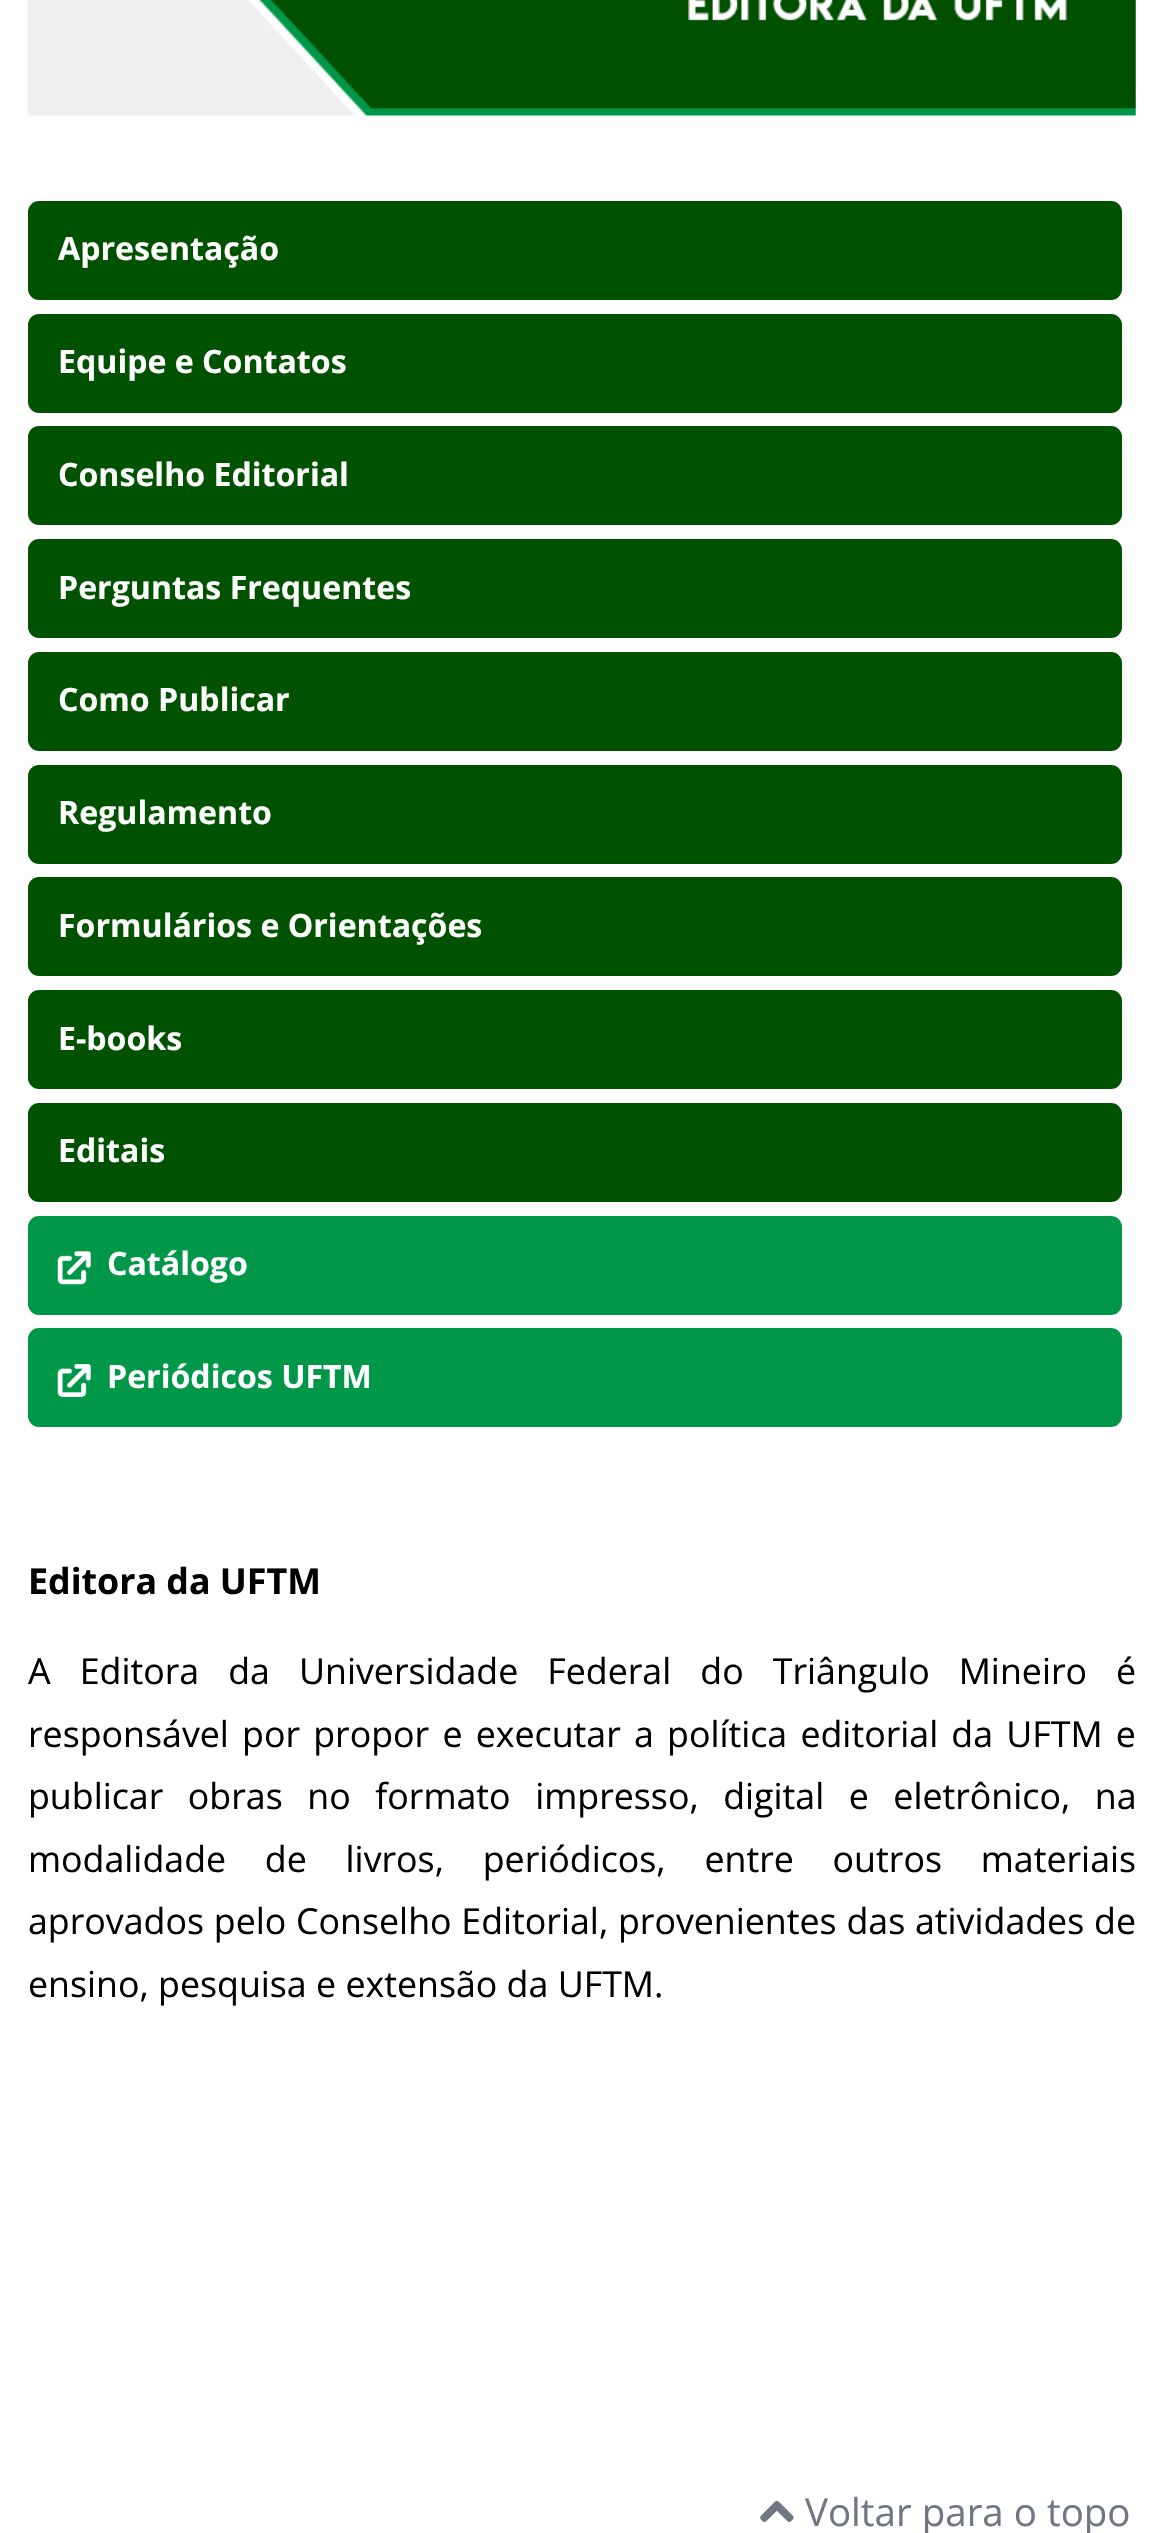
void draw(SkCanvas* canvas) {
    SkPaint paint;
    paint.setAntiAlias(true);
    auto spacedText = [&](const char* s, float x, float y, const SkFont& font, const SkPaint& ink, float letter, float word) {
        std::vector<SkGlyphID> glyphs(font.countText(s, strlen(s), SkTextEncoding::kUTF8));
        std::vector<float> xs(glyphs.size());
        font.textToGlyphs(s, strlen(s), SkTextEncoding::kUTF8, glyphs);
        font.getXPos(glyphs, xs, x);
        float extra = 0;
        for (size_t i = 0; i < glyphs.size(); i++) {
            xs[i] += extra;
            extra += letter + word * (glyphs[i] == font.unicharToGlyph(' '));
        }
        canvas->drawTextBlob(SkTextBlob::MakeFromPosHGlyphs(glyphs, xs, y, font), 0, 0, ink);
    };
    canvas->clear(0xFFFFFFFF);
    canvas->drawImageRect(SkImages::DeferredFromEncodedData(SkData::MakeFromFileName("img1.png")), SkRect::MakeXYWH(27, 0, 1109, 116), SkSamplingOptions());
    paint.setColor(0xFF005100);
    canvas->drawRoundRect(SkRect::MakeXYWH(28, 201, 1094, 99), 11, 11, paint);
    SkFont font1(fontMgr->matchFamilyStyle("Open Sans", SkFontStyle::Bold()), 32.1f);
    font1.setSubpixel(true);
    paint.setColor(0xFFFFFFFF);
    canvas->drawString("Apresentação", 58, 260, font1, paint);
    paint.setColor(0xFF005100);
    canvas->drawRoundRect(SkRect::MakeXYWH(28, 314, 1094, 99), 11, 11, paint);
    paint.setColor(0xFFFFFFFF);
    canvas->drawString("Equipe e Contatos", 58, 373, font1, paint);
    paint.setColor(0xFF005100);
    canvas->drawRoundRect(SkRect::MakeXYWH(28, 426, 1094, 99), 11, 11, paint);
    paint.setColor(0xFFFFFFFF);
    canvas->drawString("Conselho Editorial", 58, 486, font1, paint);
    paint.setColor(0xFF005100);
    canvas->drawRoundRect(SkRect::MakeXYWH(28, 539, 1094, 99), 11, 11, paint);
    paint.setColor(0xFFFFFFFF);
    canvas->drawString("Perguntas Frequentes", 58, 599, font1, paint);
    paint.setColor(0xFF005100);
    canvas->drawRoundRect(SkRect::MakeXYWH(28, 652, 1094, 99), 11, 11, paint);
    paint.setColor(0xFFFFFFFF);
    canvas->drawString("Como Publicar", 58, 711, font1, paint);
    paint.setColor(0xFF005100);
    canvas->drawRoundRect(SkRect::MakeXYWH(28, 765, 1094, 99), 11, 11, paint);
    paint.setColor(0xFFFFFFFF);
    canvas->drawString("Regulamento", 58, 824, font1, paint);
    paint.setColor(0xFF005100);
    canvas->drawRoundRect(SkRect::MakeXYWH(28, 877, 1094, 99), 11, 11, paint);
    paint.setColor(0xFFFFFFFF);
    canvas->drawString("Formulários e Orientações", 58, 937, font1, paint);
    paint.setColor(0xFF005100);
    canvas->drawRoundRect(SkRect::MakeXYWH(28, 990, 1094, 99), 11, 11, paint);
    paint.setColor(0xFFFFFFFF);
    canvas->drawString("E-books", 58, 1050, font1, paint);
    paint.setColor(0xFF005100);
    canvas->drawRoundRect(SkRect::MakeXYWH(28, 1103, 1094, 99), 11, 11, paint);
    paint.setColor(0xFFFFFFFF);
    canvas->drawString("Editais", 58, 1162, font1, paint);
    paint.setColor(0xFF019748);
    canvas->drawRoundRect(SkRect::MakeXYWH(28, 1216, 1094, 99), 11, 11, paint);
    canvas->drawImageRect(SkImages::DeferredFromEncodedData(SkData::MakeFromFileName("img2.png")), SkRect::MakeXYWH(57, 1251, 34, 34), SkSamplingOptions());
    paint.setColor(0xFFFFFFFF);
    canvas->drawString("Catálogo", 107, 1275, font1, paint);
    paint.setColor(0xFF019748);
    canvas->drawRoundRect(SkRect::MakeXYWH(28, 1328, 1094, 99), 11, 11, paint);
    canvas->drawImageRect(SkImages::DeferredFromEncodedData(SkData::MakeFromFileName("img3.png")), SkRect::MakeXYWH(57, 1364, 34, 33), SkSamplingOptions());
    paint.setColor(0xFFFFFFFF);
    canvas->drawString("Periódicos UFTM", 107, 1388, font1, paint);
    SkFont font2(fontMgr->matchFamilyStyle("Open Sans", SkFontStyle::Bold()), 35.75f);
    font2.setSubpixel(true);
    paint.setColor(0xFF000000);
    canvas->drawString("Editora da UFTM", 28, 1594, font2, paint);
    SkFont font3(fontMgr->matchFamilyStyle("Open Sans", SkFontStyle::Normal()), 35.75f);
    font3.setSubpixel(true);
    spacedText("A Editora da Universidade Federal do Triângulo Mineiro é", 28, 1684, font3, paint, 0, 19.75f);
    spacedText("responsável por propor e executar a política editorial da UFTM e", 28, 1747, font3, paint, 0, 3.9f);
    spacedText("publicar obras no formato impresso, digital e eletrônico, na", 28, 1809, font3, paint, 0, 15.25f);
    spacedText("modalidade de livros, periódicos, entre outros materiais", 28, 1872, font3, paint, 0, 29.5f);
    spacedText("aprovados pelo Conselho Editorial, provenientes das atividades de", 28, 1934, font3, paint, 0, 0.5f);
    canvas->drawString("ensino, pesquisa e extensão da UFTM.", 28, 1997, font3, paint);
    canvas->drawImageRect(SkImages::DeferredFromEncodedData(SkData::MakeFromFileName("img4.png")), SkRect::MakeXYWH(760, 2500, 34, 22), SkSamplingOptions());
    SkFont font4(fontMgr->matchFamilyStyle("Open Sans", SkFontStyle::Normal()), 38.5f);
    font4.setSubpixel(true);
    paint.setColor(0xFF717782);
    canvas->drawString("Voltar para o topo", 805, 2526, font4, paint);
}
